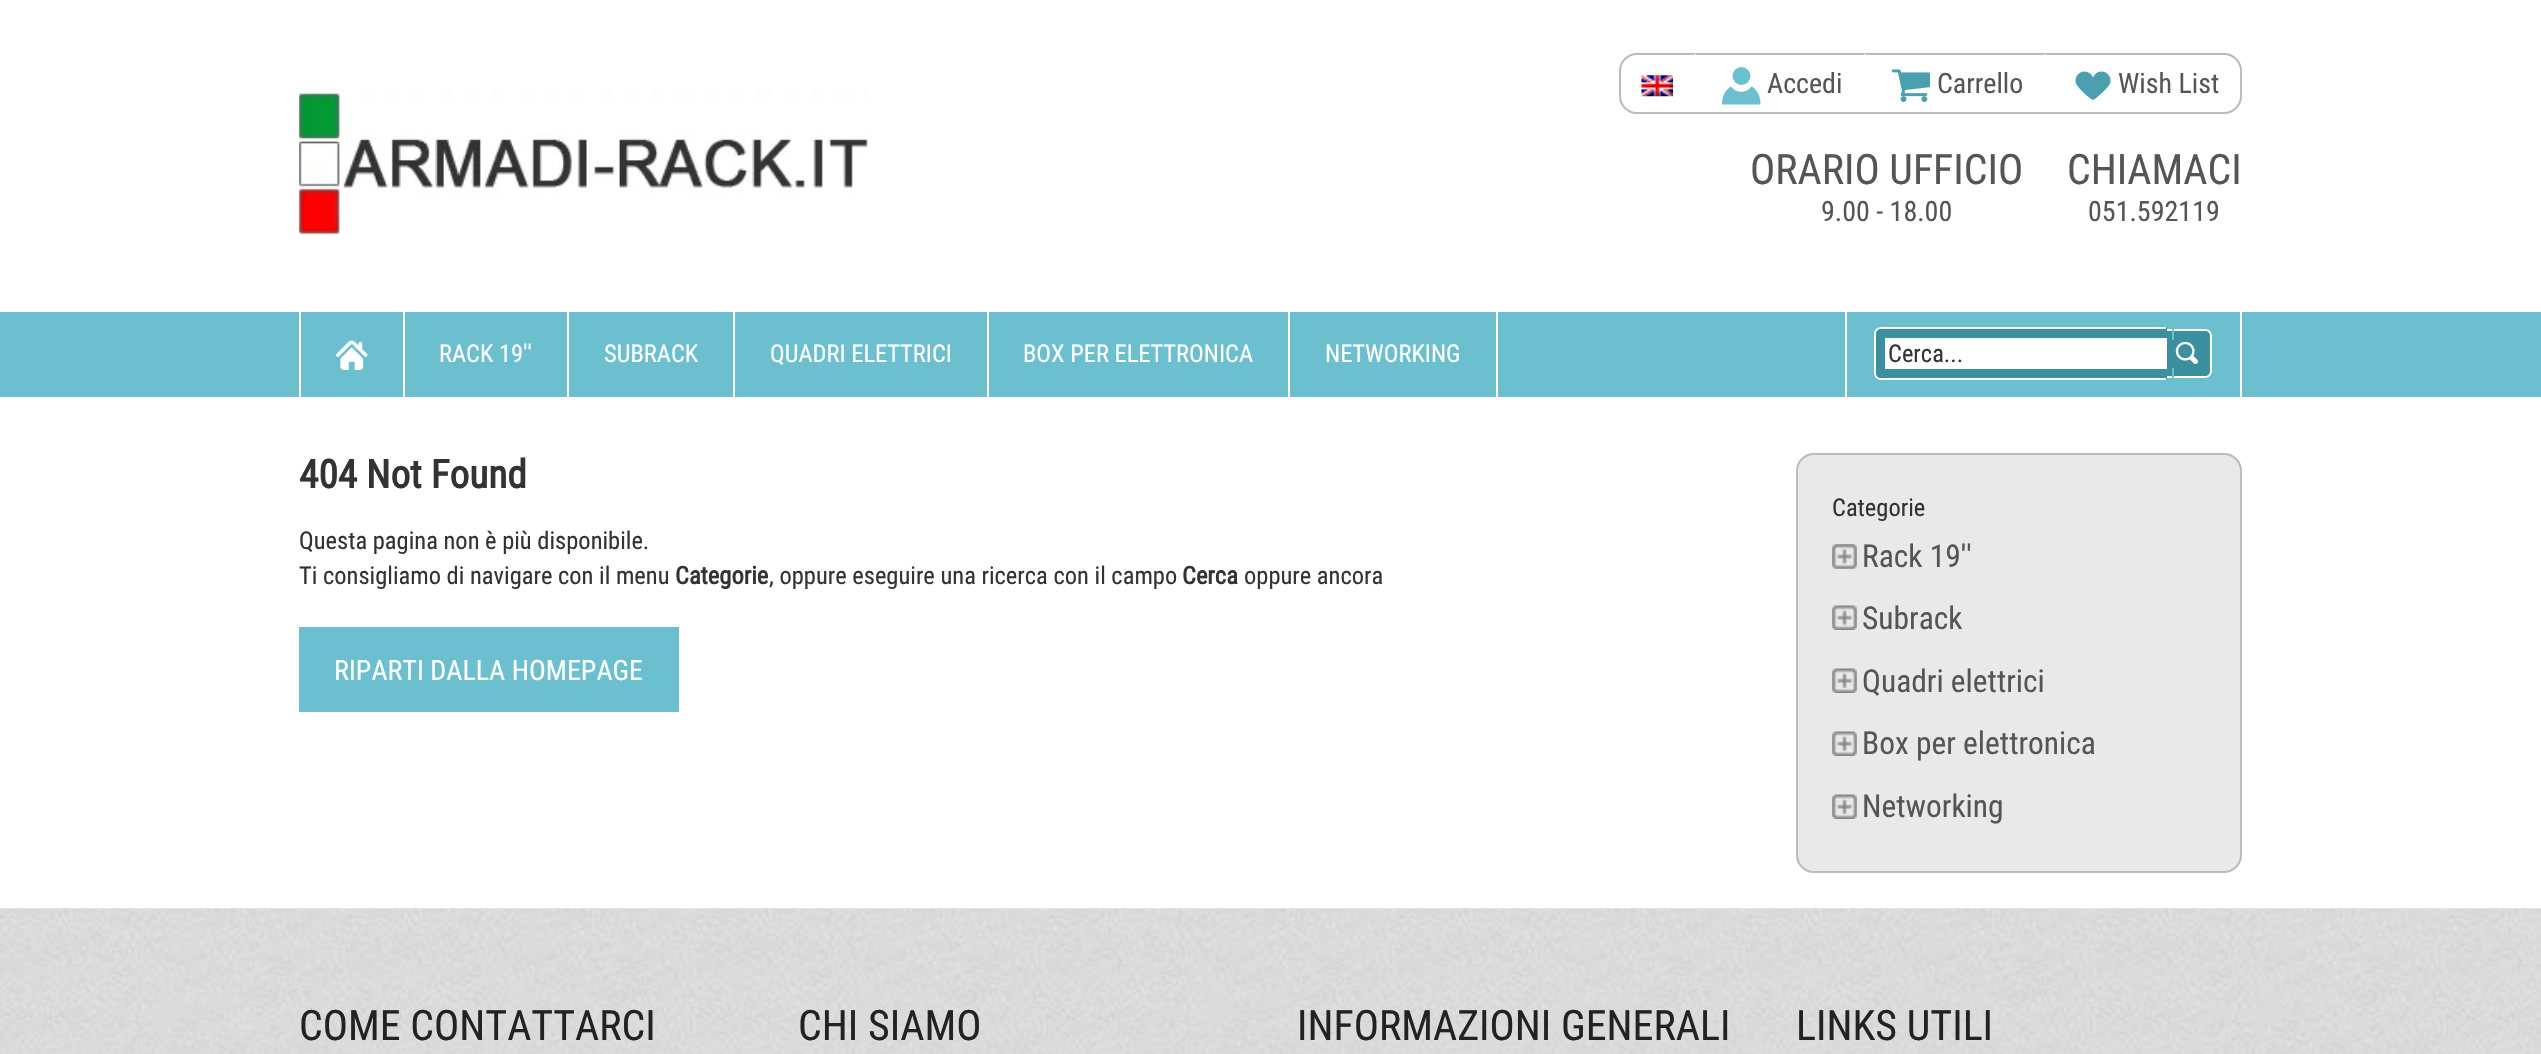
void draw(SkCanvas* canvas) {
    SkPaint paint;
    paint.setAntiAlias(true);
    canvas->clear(0xFFFFFFFF);
    canvas->drawImageRect(SkImages::DeferredFromEncodedData(SkData::MakeFromFileName("img1.png")), SkRect::MakeXYWH(299, 87, 569, 150), SkSamplingOptions());
    paint.setStyle(SkPaint::kStroke_Style);
    paint.setStrokeWidth(2);
    paint.setColor(0xFFBBBBBB);
    canvas->drawRoundRect(SkRect::MakeXYWH(1620, 54, 621, 59), 17, 17, paint);
    paint.setStyle(SkPaint::kFill_Style);
    paint.setColor(0xFFFFFFFF);
    canvas->drawRect(SkRect::MakeXYWH(1694, 54, 2, 1), paint);
    canvas->drawImageRect(SkImages::DeferredFromEncodedData(SkData::MakeFromFileName("img2.png")), SkRect::MakeXYWH(1641, 75, 32, 22), SkSamplingOptions());
    canvas->drawRect(SkRect::MakeXYWH(1864, 54, 2, 1), paint);
    paint.setColor(0xFF6CBFCE);
    canvas->drawCircle(1741.5f, 76, 9, paint);
    SkFont font1(fontMgr->matchFamilyStyle("Roboto Condensed", SkFontStyle::Normal()), 28);
    font1.setSubpixel(true);
    paint.setColor(0xFF555555);
    canvas->drawString("Accedi", 1767, 93, font1, paint);
    paint.setColor(0xFF6CBFCE);
    canvas->drawPath(SkPathBuilder().moveTo(1752, 86.5f).lineTo(1751.5f, 86.5f).cubicTo(1746.5f, 93.5f, 1736, 93.5f, 1731, 86.5f).cubicTo(1724.5f, 90.5f, 1722, 97, 1722, 104.5f).lineTo(1760.5f, 104.5f).cubicTo(1760.5f, 97, 1758.5f, 91, 1752, 86.5f).close().detach(), paint);
    paint.setColor(0xFFFFFFFF);
    canvas->drawRect(SkRect::MakeXYWH(2044, 54, 2, 1), paint);
    canvas->drawImageRect(SkImages::DeferredFromEncodedData(SkData::MakeFromFileName("img3.png")), SkRect::MakeXYWH(1892, 69, 38, 33), SkSamplingOptions());
    paint.setColor(0xFF555555);
    canvas->drawString("Carrello", 1937, 93, font1, paint);
    canvas->drawImageRect(SkImages::DeferredFromEncodedData(SkData::MakeFromFileName("img4.png")), SkRect::MakeXYWH(2075, 71, 36, 29), SkSamplingOptions());
    canvas->drawString("Wish List", 2118, 93, font1, paint);
    SkFont font2(fontMgr->matchFamilyStyle("Roboto Condensed", SkFontStyle::Normal()), 42);
    font2.setSubpixel(true);
    canvas->drawString("ORARIO UFFICIO", 1750, 184, font2, paint);
    canvas->drawString("9.00 - 18.00", 1821, 221, font1, paint);
    canvas->drawString("CHIAMACI", 2067, 184, font2, paint);
    canvas->drawString("051.592119", 2088, 221, font1, paint);
    paint.setColor(0xFF6CBFCE);
    canvas->drawRect(SkRect::MakeXYWH(0, 312, 2541, 85), paint);
    paint.setColor(0xFFFFFFFF);
    canvas->drawRect(SkRect::MakeXYWH(299, 312, 2, 85), paint);
    canvas->drawRect(SkRect::MakeXYWH(403, 312, 2, 85), paint);
    canvas->drawImageRect(SkImages::DeferredFromEncodedData(SkData::MakeFromFileName("img5.png")), SkRect::MakeXYWH(336, 340, 32, 30), SkSamplingOptions());
    canvas->drawRect(SkRect::MakeXYWH(567, 312, 2, 85), paint);
    SkFont font3(fontMgr->matchFamilyStyle("Roboto Condensed", SkFontStyle::Normal()), 24.5f);
    font3.setSubpixel(true);
    canvas->drawString("RACK 19''", 439, 362, font3, paint);
    canvas->drawRect(SkRect::MakeXYWH(733, 312, 2, 85), paint);
    canvas->drawString("SUBRACK", 604, 362, font3, paint);
    canvas->drawRect(SkRect::MakeXYWH(987, 312, 2, 85), paint);
    canvas->drawString("QUADRI ELETTRICI", 770, 362, font3, paint);
    canvas->drawRect(SkRect::MakeXYWH(1288, 312, 2, 85), paint);
    canvas->drawString("BOX PER ELETTRONICA", 1023, 362, font3, paint);
    canvas->drawRect(SkRect::MakeXYWH(1496, 312, 2, 85), paint);
    canvas->drawString("NETWORKING", 1325, 362, font3, paint);
    canvas->drawRect(SkRect::MakeXYWH(2240, 312, 2, 85), paint);
    canvas->drawRect(SkRect::MakeXYWH(1845, 312, 2, 85), paint);
    paint.setColor(0xFF3C8F9E);
    canvas->drawPath(SkPathBuilder().moveTo(1881, 327).lineTo(2167, 327).lineTo(2167, 380).lineTo(1881, 380).cubicTo(1877, 380, 1874, 377, 1874, 373).lineTo(1874, 334).cubicTo(1874, 330, 1877, 327, 1881, 327).close().detach(), paint);
    paint.setColor(0xFFFFFFFF);
    canvas->drawPath(SkPathBuilder(SkPathFillType::kEvenOdd).moveTo(1881, 327).lineTo(2166, 327).lineTo(2166, 380).lineTo(1881, 380).cubicTo(1877, 380, 1874, 377, 1874, 373).lineTo(1874, 334).cubicTo(1874, 330, 1877, 327, 1881, 327).close().moveTo(1881, 329).lineTo(2166, 329).lineTo(2166, 378).lineTo(1881, 378).cubicTo(1878, 378, 1876, 376, 1876, 373).lineTo(1876, 334).cubicTo(1876, 331, 1878, 329, 1881, 329).close().detach(), paint);
    paint.setColor(0xFF3C8F9E);
    canvas->drawRect(SkRect::MakeXYWH(2167, 329, 5, 49), paint);
    paint.setColor(0xFFFFFFFF);
    canvas->drawRect(SkRect::MakeXYWH(2167, 329, 5, 2), paint);
    canvas->drawRect(SkRect::MakeXYWH(2167, 376, 5, 2), paint);
    paint.setColor(0xFF3C8F9E);
    canvas->drawPath(SkPathBuilder().moveTo(2174, 329).lineTo(2205, 329).cubicTo(2209, 329, 2212, 332, 2212, 336).lineTo(2212, 371).cubicTo(2212, 375, 2209, 378, 2205, 378).lineTo(2174, 378).close().detach(), paint);
    paint.setColor(0xFFFFFFFF);
    canvas->drawPath(SkPathBuilder(SkPathFillType::kEvenOdd).moveTo(2174, 329).lineTo(2205, 329).cubicTo(2209, 329, 2212, 332, 2212, 336).lineTo(2212, 371).cubicTo(2212, 375, 2209, 378, 2205, 378).lineTo(2174, 378).close().moveTo(2174, 331).lineTo(2205, 331).cubicTo(2208, 331, 2210, 333, 2210, 336).lineTo(2210, 371).cubicTo(2210, 374, 2208, 376, 2205, 376).lineTo(2174, 376).close().detach(), paint);
    canvas->drawRect(SkRect::MakeXYWH(1885, 338, 282, 31), paint);
    paint.setColor(0xFF333333);
    canvas->drawString("Cerca...", 1888, 362, font3, paint);
    paint.setColor(0xFF3C8F9E);
    canvas->drawRect(SkRect::MakeXYWH(2172, 340, 2, 28), paint);
    canvas->drawImageRect(SkImages::DeferredFromEncodedData(SkData::MakeFromFileName("img6.png")), SkRect::MakeXYWH(2175, 341, 23, 23), SkSamplingOptions());
    SkFont font4(fontMgr->matchFamilyStyle("Roboto Condensed", SkFontStyle::Bold()), 39.25f);
    font4.setSubpixel(true);
    paint.setColor(0xFF333333);
    canvas->drawString("404 Not Found", 299, 488, font4, paint);
    canvas->drawString("Questa pagina non è più disponibile.", 299, 549, font3, paint);
    canvas->drawString("Ti consigliamo di navigare con il menu", 299, 584, font3, paint);
    SkFont font5(fontMgr->matchFamilyStyle("Roboto Condensed", SkFontStyle::Bold()), 24.5f);
    font5.setSubpixel(true);
    canvas->drawString("Categorie", 675, 584, font5, paint);
    canvas->drawString(", oppure eseguire una ricerca con il campo", 769, 584, font3, paint);
    canvas->drawString("Cerca", 1182, 584, font5, paint);
    canvas->drawString("oppure ancora", 1244, 584, font3, paint);
    paint.setColor(0xFF6CBFCF);
    canvas->drawRect(SkRect::MakeXYWH(299, 627, 380, 85), paint);
    paint.setColor(0xFFFFFFFF);
    canvas->drawString("RIPARTI DALLA HOMEPAGE", 334, 680, font1, paint);
    paint.setColor(0xFFE9E9E9);
    canvas->drawRoundRect(SkRect::MakeXYWH(1797, 454, 444, 418), 17, 17, paint);
    paint.setStyle(SkPaint::kStroke_Style);
    paint.setColor(0xFFBBBBBB);
    canvas->drawRoundRect(SkRect::MakeXYWH(1797, 454, 444, 418), 17, 17, paint);
    paint.setStyle(SkPaint::kFill_Style);
    paint.setColor(0xFF333333);
    canvas->drawString("Categorie", 1832, 516, font3, paint);
    canvas->drawImageRect(SkImages::DeferredFromEncodedData(SkData::MakeFromFileName("img7.png")), SkRect::MakeXYWH(1832, 544, 25, 25), SkSamplingOptions());
    SkFont font6(fontMgr->matchFamilyStyle("Roboto Condensed", SkFontStyle::Normal()), 31.5f);
    font6.setSubpixel(true);
    paint.setColor(0xFF555555);
    canvas->drawString("Rack 19''", 1862, 567, font6, paint);
    canvas->drawImageRect(SkImages::DeferredFromEncodedData(SkData::MakeFromFileName("img8.png")), SkRect::MakeXYWH(1832, 605, 25, 25), SkSamplingOptions());
    canvas->drawString("Subrack", 1862, 629, font6, paint);
    canvas->drawImageRect(SkImages::DeferredFromEncodedData(SkData::MakeFromFileName("img8.png")), SkRect::MakeXYWH(1832, 668, 25, 25), SkSamplingOptions());
    canvas->drawString("Quadri elettrici", 1862, 692, font6, paint);
    canvas->drawImageRect(SkImages::DeferredFromEncodedData(SkData::MakeFromFileName("img8.png")), SkRect::MakeXYWH(1832, 731, 25, 25), SkSamplingOptions());
    canvas->drawString("Box per elettronica", 1862, 754, font6, paint);
    canvas->drawImageRect(SkImages::DeferredFromEncodedData(SkData::MakeFromFileName("img8.png")), SkRect::MakeXYWH(1832, 794, 25, 25), SkSamplingOptions());
    canvas->drawString("Networking", 1862, 817, font6, paint);
    canvas->drawImageRect(SkImages::DeferredFromEncodedData(SkData::MakeFromFileName("img9.png")), SkRect::MakeXYWH(0, 908, 2541, 146), SkSamplingOptions());
    paint.setColor(0xFF222222);
    canvas->drawString("COME CONTATTARCI", 299, 1040, font2, paint);
    canvas->drawString("CHI SIAMO", 798, 1040, font2, paint);
    canvas->drawString("INFORMAZIONI GENERALI", 1297, 1040, font2, paint);
    canvas->drawString("LINKS UTILI", 1796, 1040, font2, paint);
}
